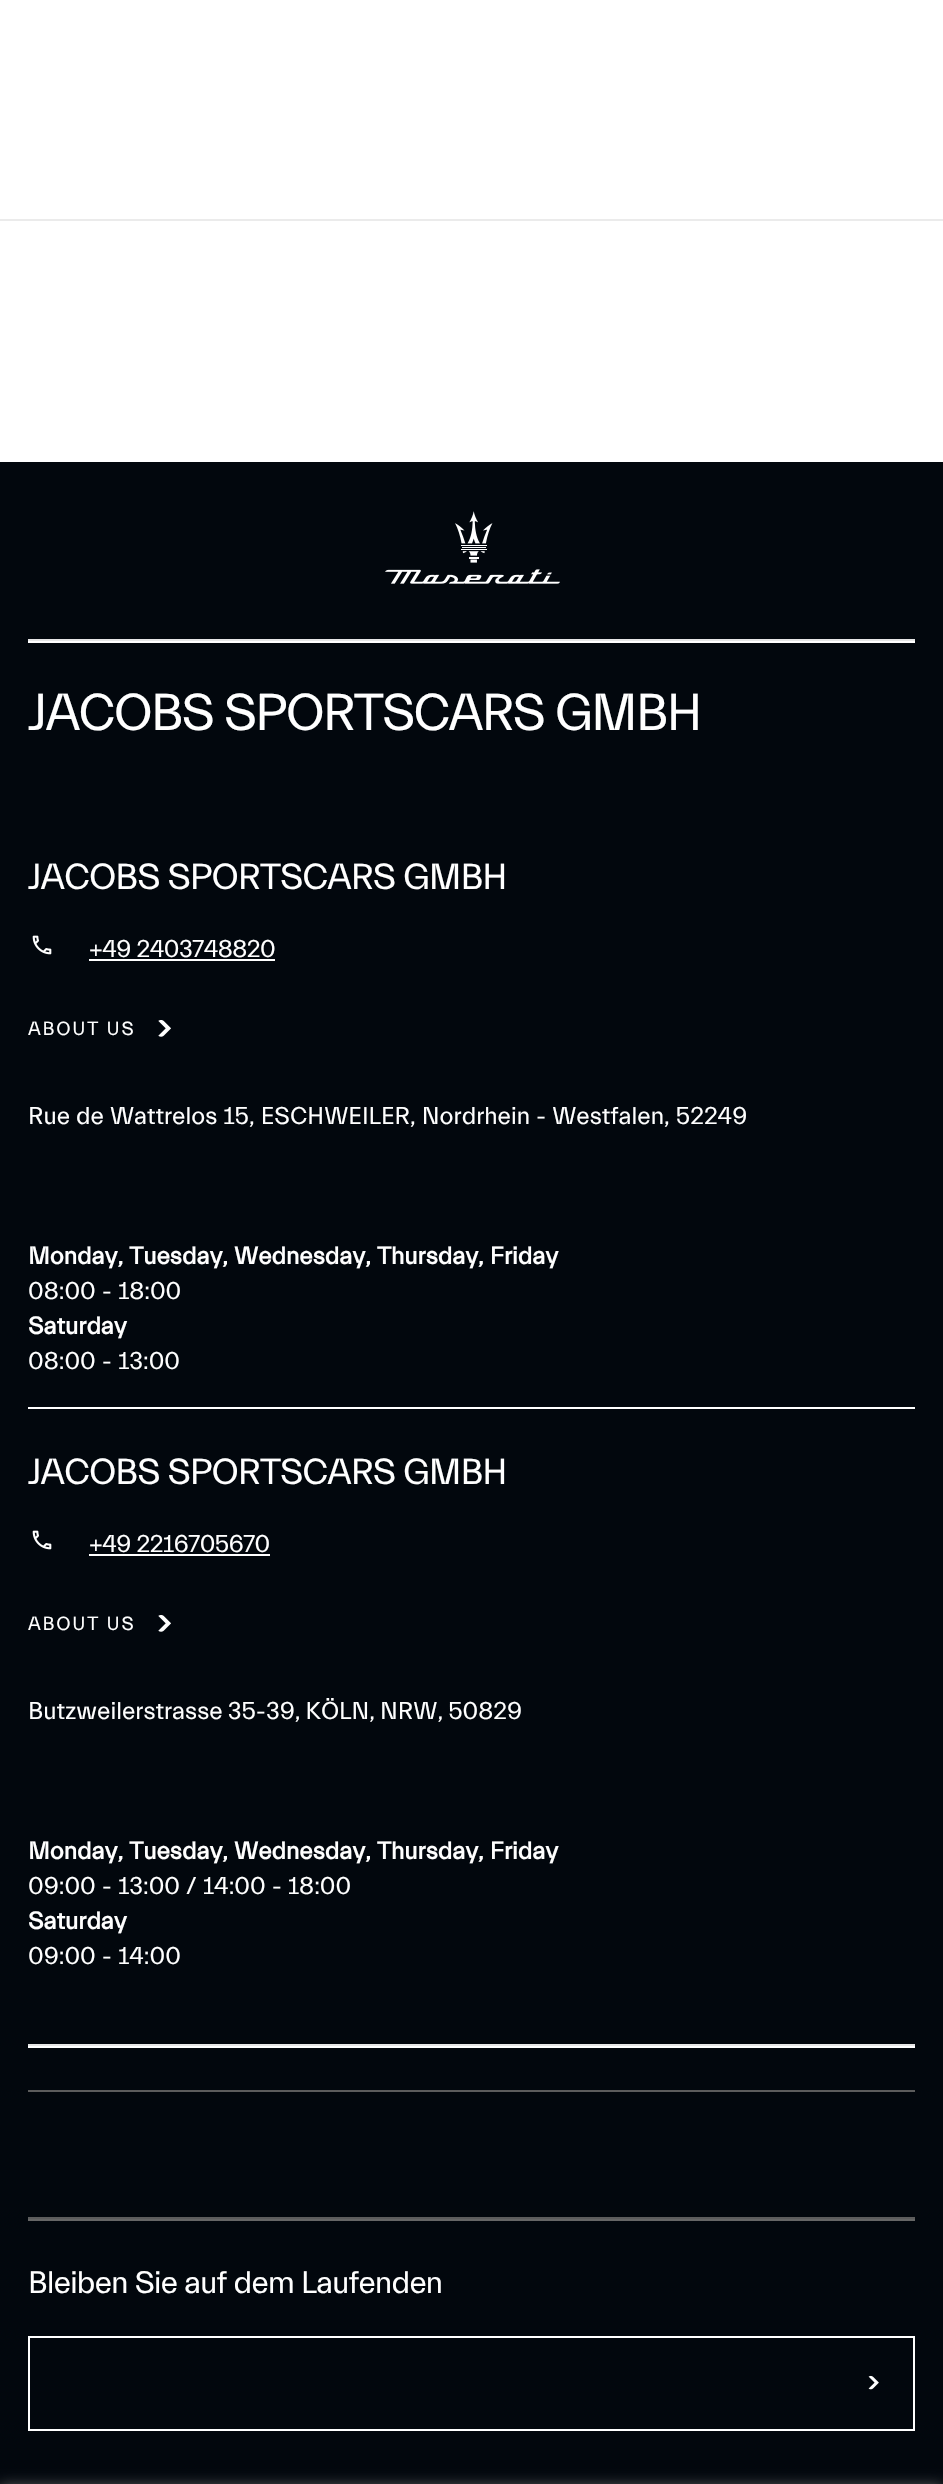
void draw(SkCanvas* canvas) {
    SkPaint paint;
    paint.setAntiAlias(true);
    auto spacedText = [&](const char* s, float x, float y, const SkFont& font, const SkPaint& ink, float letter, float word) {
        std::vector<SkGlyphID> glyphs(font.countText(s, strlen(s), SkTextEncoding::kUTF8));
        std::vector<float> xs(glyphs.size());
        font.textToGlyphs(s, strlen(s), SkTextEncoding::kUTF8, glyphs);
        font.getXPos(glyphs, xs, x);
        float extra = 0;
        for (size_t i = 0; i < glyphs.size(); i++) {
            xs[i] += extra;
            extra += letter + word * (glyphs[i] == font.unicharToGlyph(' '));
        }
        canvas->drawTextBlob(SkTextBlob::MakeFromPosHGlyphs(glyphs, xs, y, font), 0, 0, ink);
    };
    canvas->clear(0xFFFFFFFF);
    paint.setColor(0xFFEBEBEB);
    canvas->drawRect(SkRect::MakeXYWH(0, 219, 943, 2), paint);
    paint.setColor(0xFF02070D);
    canvas->drawRect(SkRect::MakeXYWH(0, 462, 943, 2022), paint);
    paint.setColor(0x80A8A8A8);
    paint.setMaskFilter(SkMaskFilter::MakeBlur(kNormal_SkBlurStyle, 7));
    canvas->drawRect(SkRect::MakeXYWH(0, 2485, 943, 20), paint);
    paint.setMaskFilter(nullptr);
    canvas->drawImageRect(SkImages::DeferredFromEncodedData(SkData::MakeFromFileName("img1.png")), SkRect::MakeXYWH(385, 511, 175, 73), SkSamplingOptions());
    paint.setColor(0xFFFFFFFF);
    canvas->drawRect(SkRect::MakeXYWH(28, 641, 887, 2), paint);
    paint.setColor(0xFFE6E6E6);
    canvas->drawRect(SkRect::MakeXYWH(28, 639, 887, 2), paint);
    SkFont font1(fontMgr->matchFamilyStyle("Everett", SkFontStyle::Normal()), 52.5f);
    font1.setSubpixel(true);
    paint.setColor(0xFFFFFFFF);
    spacedText("JACOBS SPORTSCARS GMBH", 28, 730, font1, paint, -2, 0);
    canvas->drawRect(SkRect::MakeXYWH(28, 1407, 887, 2), paint);
    SkFont font2(fontMgr->matchFamilyStyle("Everett", SkFontStyle::Normal()), 36.75f);
    font2.setSubpixel(true);
    spacedText("JACOBS SPORTSCARS GMBH", 28, 889, font2, paint, -1.05f, 0);
    canvas->drawImageRect(SkImages::DeferredFromEncodedData(SkData::MakeFromFileName("img2.png")), SkRect::MakeXYWH(32, 935, 20, 20), SkSamplingOptions());
    SkFont font3(fontMgr->matchFamilyStyle("Everett", SkFontStyle::Normal()), 24.5f);
    font3.setSubpixel(true);
    spacedText("+49 2403748820", 89, 957, font3, paint, -0.5f, 0);
    canvas->drawRect(SkRect::MakeXYWH(89, 959, 186, 2), paint);
    SkFont font4(fontMgr->matchFamilyStyle("Everett", SkFontStyle::Normal()), 19.25f);
    font4.setSubpixel(true);
    spacedText("ABOUT US", 28, 1035, font4, paint, 1.75f, 0);
    canvas->drawImageRect(SkImages::DeferredFromEncodedData(SkData::MakeFromFileName("img3.png")), SkRect::MakeXYWH(158, 1020, 13, 17), SkSamplingOptions());
    canvas->drawString("Rue de Wattrelos 15, ESCHWEILER, Nordrhein - Westfalen, 52249", 28, 1124, font3, paint);
    SkFont font5(fontMgr->matchFamilyStyle("Everett", SkFontStyle::Bold()), 24.5f);
    font5.setSubpixel(true);
    canvas->drawString("Monday, Tuesday, Wednesday, Thursday, Friday", 28, 1264, font5, paint);
    canvas->drawString("08:00 - 18:00", 28, 1299, font3, paint);
    canvas->drawString("Saturday", 28, 1334, font5, paint);
    canvas->drawString("08:00 - 13:00", 28, 1369, font3, paint);
    spacedText("JACOBS SPORTSCARS GMBH", 28, 1484, font2, paint, -1.05f, 0);
    canvas->drawImageRect(SkImages::DeferredFromEncodedData(SkData::MakeFromFileName("img2.png")), SkRect::MakeXYWH(32, 1530, 20, 20), SkSamplingOptions());
    spacedText("+49 2216705670", 89, 1552, font3, paint, -0.5f, 0);
    canvas->drawRect(SkRect::MakeXYWH(89, 1554, 181, 2), paint);
    spacedText("ABOUT US", 28, 1630, font4, paint, 1.75f, 0);
    canvas->drawImageRect(SkImages::DeferredFromEncodedData(SkData::MakeFromFileName("img3.png")), SkRect::MakeXYWH(158, 1615, 13, 17), SkSamplingOptions());
    spacedText("Butzweilerstrasse 35-39, KÖLN, NRW, 50829", 28, 1719, font3, paint, 0, -1);
    canvas->drawString("Monday, Tuesday, Wednesday, Thursday, Friday", 28, 1859, font5, paint);
    canvas->drawString("09:00 - 13:00 / 14:00 - 18:00", 28, 1894, font3, paint);
    canvas->drawString("Saturday", 28, 1929, font5, paint);
    canvas->drawString("09:00 - 14:00", 28, 1964, font3, paint);
    canvas->drawRect(SkRect::MakeXYWH(28, 2046, 887, 2), paint);
    paint.setColor(0xFFE6E6E6);
    canvas->drawRect(SkRect::MakeXYWH(28, 2044, 887, 2), paint);
    paint.setColor(0xFF5C5C5C);
    canvas->drawRect(SkRect::MakeXYWH(28, 2090, 887, 2), paint);
    paint.setColor(0xFF666666);
    canvas->drawRect(SkRect::MakeXYWH(28, 2219, 887, 2), paint);
    paint.setColor(0xFF5C5C5C);
    canvas->drawRect(SkRect::MakeXYWH(28, 2217, 887, 2), paint);
    SkFont font6(fontMgr->matchFamilyStyle("Everett", SkFontStyle::Normal()), 31.5f);
    font6.setSubpixel(true);
    paint.setColor(0xFFFFFFFF);
    spacedText("Bleiben Sie auf dem Laufenden", 28, 2293, font6, paint, -0.7f, 0);
    paint.setStyle(SkPaint::kStroke_Style);
    paint.setStrokeWidth(2);
    canvas->drawRect(SkRect::MakeXYWH(29, 2337, 885, 93), paint);
    canvas->drawImageRect(SkImages::DeferredFromEncodedData(SkData::MakeFromFileName("img4.png")), SkRect::MakeXYWH(868, 2375, 11, 15), SkSamplingOptions());
}
